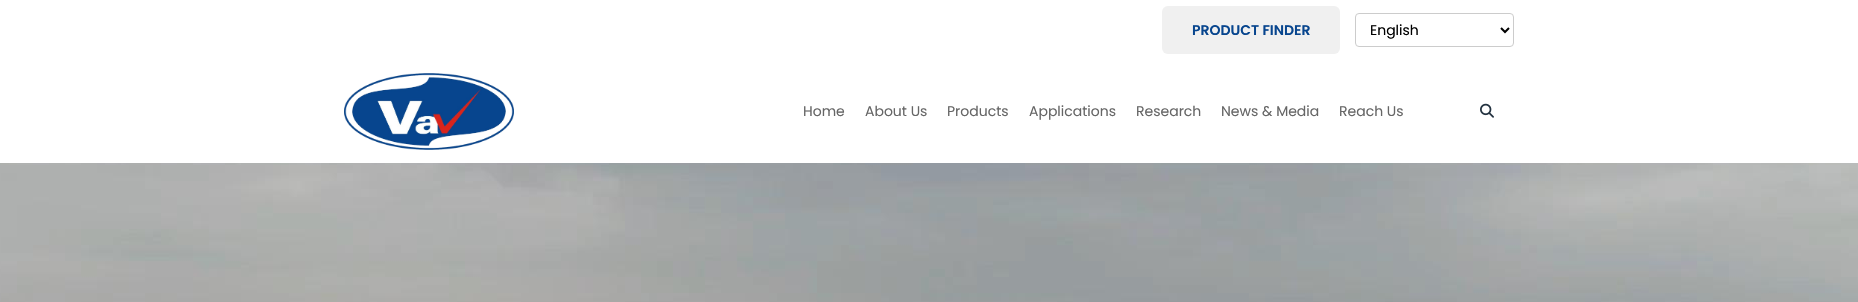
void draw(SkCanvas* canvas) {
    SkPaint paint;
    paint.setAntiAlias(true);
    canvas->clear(0xFFFFFFFF);
    paint.setColor(0xFFF0F0F0);
    canvas->drawRoundRect(SkRect::MakeXYWH(1162, 6, 178, 48), 6, 6, paint);
    SkFont font1(fontMgr->matchFamilyStyle("Poppins", SkFontStyle(600, SkFontStyle::kNormal_Width, SkFontStyle::kUpright_Slant)), 14);
    font1.setSubpixel(true);
    paint.setColor(0xFF07458E);
    canvas->drawString("PRODUCT FINDER", 1192, 35, font1, paint);
    paint.setStyle(SkPaint::kStroke_Style);
    paint.setStrokeWidth(1);
    paint.setColor(0xFFCCCCCC);
    canvas->drawRoundRect(SkRect::MakeXYWH(1355.5f, 13.5f, 158, 33), 3.5f, 3.5f, paint);
    paint.setStrokeWidth(2);
    paint.setColor(0xFF000000);
    canvas->drawPath(SkPathBuilder().moveTo(1501, 28).lineTo(1505, 32).lineTo(1509, 28).detach(), paint);
    SkFont font2(fontMgr->matchFamilyStyle("Poppins", SkFontStyle::Normal()), 14);
    font2.setSubpixel(true);
    paint.setStyle(SkPaint::kFill_Style);
    canvas->drawString("English", 1370, 35, font2, paint);
    canvas->drawImageRect(SkImages::DeferredFromEncodedData(SkData::MakeFromFileName("img1.png")), SkRect::MakeXYWH(344, 73, 170, 77), SkSamplingOptions());
    paint.setColor(0xFF666666);
    canvas->drawString("Home", 803, 116, font2, paint);
    canvas->drawString("About Us", 865, 116, font2, paint);
    canvas->drawString("Products", 947, 116, font2, paint);
    canvas->drawString("Applications", 1029, 116, font2, paint);
    canvas->drawString("Research", 1136, 116, font2, paint);
    canvas->drawString("News & Media", 1221, 116, font2, paint);
    canvas->drawString("Reach Us", 1339, 116, font2, paint);
    canvas->drawImageRect(SkImages::DeferredFromEncodedData(SkData::MakeFromFileName("img2.png")), SkRect::MakeXYWH(1480, 103, 14, 15), SkSamplingOptions());
    canvas->drawImageRect(SkImages::DeferredFromEncodedData(SkData::MakeFromFileName("img3.png")), SkRect::MakeXYWH(0, 163, 1858, 139), SkSamplingOptions());
}
